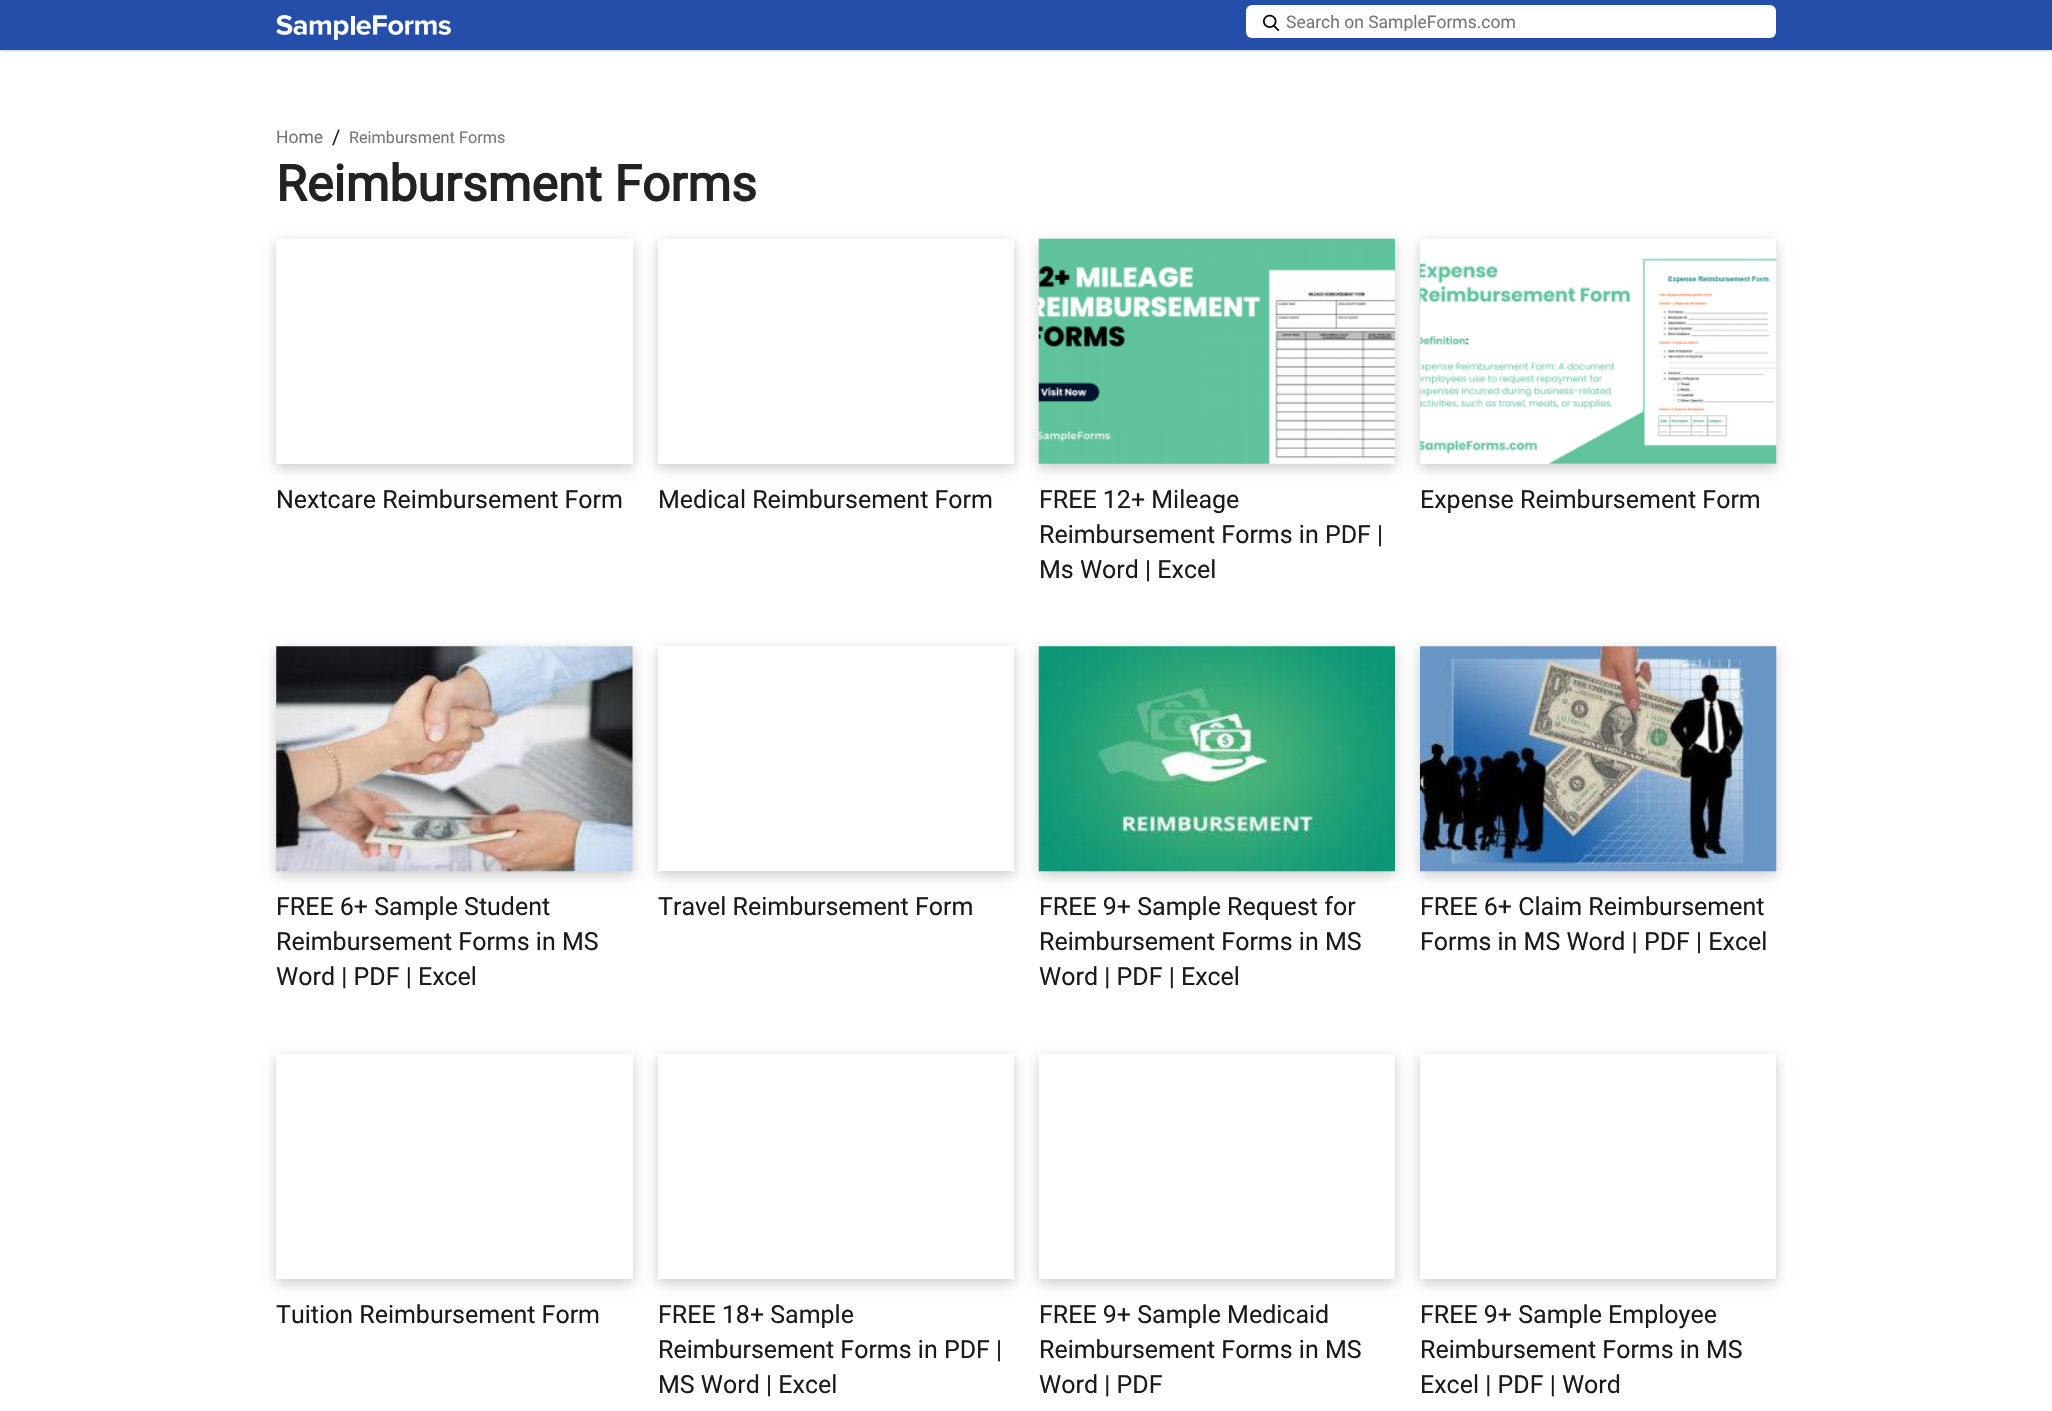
void draw(SkCanvas* canvas) {
    SkPaint paint;
    paint.setAntiAlias(true);
    canvas->clear(0xFFFFFFFF);
    paint.setColor(0x33000000);
    paint.setMaskFilter(SkMaskFilter::MakeBlur(kNormal_SkBlurStyle, 1));
    canvas->drawRect(SkRect::MakeXYWH(0, 1, 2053, 50), paint);
    paint.setMaskFilter(nullptr);
    paint.setColor(0xFF254EAA);
    canvas->drawRect(SkRect::MakeXYWH(0, 0, 2052, 50), paint);
    canvas->drawImageRect(SkImages::DeferredFromEncodedData(SkData::MakeFromFileName("img1.png")), SkRect::MakeXYWH(276, 15, 175, 25), SkSamplingOptions());
    paint.setColor(0xFFFFFFFF);
    canvas->drawRoundRect(SkRect::MakeXYWH(1246, 5, 530, 33), 6, 6, paint);
    canvas->drawImageRect(SkImages::DeferredFromEncodedData(SkData::MakeFromFileName("img2.png")), SkRect::MakeXYWH(1262, 14, 18, 17), SkSamplingOptions());
    canvas->save();
    canvas->clipRect(SkRect::MakeXYWH(1286, 11, 475, 20));
    SkFont font1(fontMgr->matchFamilyStyle("Roboto", SkFontStyle::Normal()), 17.5f);
    font1.setSubpixel(true);
    paint.setColor(0xFF767676);
    canvas->drawString("Search on SampleForms.com", 1286, 28, font1, paint);
    canvas->restore();
    canvas->drawString("Home", 276, 143, font1, paint);
    SkFont font2(fontMgr->matchFamilyStyle("Roboto", SkFontStyle::Normal()), 20);
    font2.setSubpixel(true);
    paint.setColor(0xFF222222);
    canvas->drawString("/", 332, 144, font2, paint);
    SkFont font3(fontMgr->matchFamilyStyle("Roboto", SkFontStyle::Normal()), 16.25f);
    font3.setSubpixel(true);
    paint.setColor(0xFF767676);
    canvas->drawString("Reimbursment Forms", 349, 143, font3, paint);
    SkFont font4(fontMgr->matchFamilyStyle("Roboto", SkFontStyle::Bold()), 50);
    font4.setSubpixel(true);
    paint.setColor(0xFF222222);
    canvas->drawString("Reimbursment Forms", 276, 201, font4, paint);
    canvas->save();
    canvas->clipPath(SkPathBuilder(SkPathFillType::kEvenOdd).moveTo(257, 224).lineTo(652, 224).lineTo(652, 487).lineTo(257, 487).close().moveTo(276, 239).lineTo(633, 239).lineTo(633, 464).lineTo(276, 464).close().detach(), true);
    paint.setColor(0x33000000);
    paint.setMaskFilter(SkMaskFilter::MakeBlur(kNormal_SkBlurStyle, 6));
    canvas->drawRect(SkRect::MakeXYWH(276, 243, 357, 225), paint);
    paint.setMaskFilter(nullptr);
    canvas->restore();
    SkFont font5(fontMgr->matchFamilyStyle("Roboto", SkFontStyle::Normal()), 25);
    font5.setSubpixel(true);
    paint.setColor(0xFF1A1A1A);
    canvas->drawString("Nextcare Reimbursement Form", 276, 508, font5, paint);
    canvas->save();
    canvas->clipPath(SkPathBuilder(SkPathFillType::kEvenOdd).moveTo(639, 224).lineTo(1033, 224).lineTo(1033, 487).lineTo(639, 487).close().moveTo(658, 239).lineTo(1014, 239).lineTo(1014, 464).lineTo(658, 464).close().detach(), true);
    paint.setColor(0x33000000);
    paint.setMaskFilter(SkMaskFilter::MakeBlur(kNormal_SkBlurStyle, 6));
    canvas->drawRect(SkRect::MakeXYWH(658, 243, 356, 225), paint);
    paint.setMaskFilter(nullptr);
    canvas->restore();
    paint.setColor(0xFF1A1A1A);
    canvas->drawString("Medical Reimbursement Form", 658, 508, font5, paint);
    paint.setColor(0x33000000);
    paint.setMaskFilter(SkMaskFilter::MakeBlur(kNormal_SkBlurStyle, 6));
    canvas->drawRect(SkRect::MakeXYWH(1039, 243, 356, 225), paint);
    paint.setMaskFilter(nullptr);
    canvas->drawImageRect(SkImages::DeferredFromEncodedData(SkData::MakeFromFileName("img3.png")), SkRect::MakeXYWH(1038, 238, 357, 226), SkSamplingOptions());
    paint.setColor(0xFF1A1A1A);
    canvas->drawString("FREE 12+ Mileage", 1039, 508, font5, paint);
    canvas->drawString("Reimbursement Forms in PDF |", 1039, 543, font5, paint);
    canvas->drawString("Ms Word | Excel", 1039, 578, font5, paint);
    canvas->save();
    canvas->clipPath(SkPathBuilder(SkPathFillType::kEvenOdd).moveTo(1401, 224).lineTo(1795, 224).lineTo(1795, 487).lineTo(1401, 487).close().moveTo(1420, 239).lineTo(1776, 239).lineTo(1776, 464).lineTo(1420, 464).close().detach(), true);
    paint.setColor(0x33000000);
    paint.setMaskFilter(SkMaskFilter::MakeBlur(kNormal_SkBlurStyle, 6));
    canvas->drawRect(SkRect::MakeXYWH(1420, 243, 356, 225), paint);
    paint.setMaskFilter(nullptr);
    canvas->restore();
    canvas->drawImageRect(SkImages::DeferredFromEncodedData(SkData::MakeFromFileName("img4.png")), SkRect::MakeXYWH(1420, 250, 357, 214), SkSamplingOptions());
    paint.setColor(0xFF1A1A1A);
    canvas->drawString("Expense Reimbursement Form", 1420, 508, font5, paint);
    paint.setColor(0x33000000);
    paint.setMaskFilter(SkMaskFilter::MakeBlur(kNormal_SkBlurStyle, 6));
    canvas->drawRect(SkRect::MakeXYWH(276, 650, 357, 225), paint);
    paint.setMaskFilter(nullptr);
    canvas->drawImageRect(SkImages::DeferredFromEncodedData(SkData::MakeFromFileName("img5.png")), SkRect::MakeXYWH(276, 646, 357, 226), SkSamplingOptions());
    paint.setColor(0xFF1A1A1A);
    canvas->drawString("FREE 6+ Sample Student", 276, 915, font5, paint);
    canvas->drawString("Reimbursement Forms in MS", 276, 950, font5, paint);
    canvas->drawString("Word | PDF | Excel", 276, 985, font5, paint);
    canvas->save();
    canvas->clipPath(SkPathBuilder(SkPathFillType::kEvenOdd).moveTo(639, 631).lineTo(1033, 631).lineTo(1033, 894).lineTo(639, 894).close().moveTo(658, 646).lineTo(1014, 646).lineTo(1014, 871).lineTo(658, 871).close().detach(), true);
    paint.setColor(0x33000000);
    paint.setMaskFilter(SkMaskFilter::MakeBlur(kNormal_SkBlurStyle, 6));
    canvas->drawRect(SkRect::MakeXYWH(658, 650, 356, 225), paint);
    paint.setMaskFilter(nullptr);
    canvas->restore();
    paint.setColor(0xFF1A1A1A);
    canvas->drawString("Travel Reimbursement Form", 658, 915, font5, paint);
    paint.setColor(0x33000000);
    paint.setMaskFilter(SkMaskFilter::MakeBlur(kNormal_SkBlurStyle, 6));
    canvas->drawRect(SkRect::MakeXYWH(1039, 650, 356, 225), paint);
    paint.setMaskFilter(nullptr);
    canvas->drawImageRect(SkImages::DeferredFromEncodedData(SkData::MakeFromFileName("img6.png")), SkRect::MakeXYWH(1038, 646, 357, 226), SkSamplingOptions());
    paint.setColor(0xFF1A1A1A);
    canvas->drawString("FREE 9+ Sample Request for", 1039, 915, font5, paint);
    canvas->drawString("Reimbursement Forms in MS", 1039, 950, font5, paint);
    canvas->drawString("Word | PDF | Excel", 1039, 985, font5, paint);
    paint.setColor(0x33000000);
    paint.setMaskFilter(SkMaskFilter::MakeBlur(kNormal_SkBlurStyle, 6));
    canvas->drawRect(SkRect::MakeXYWH(1420, 650, 356, 225), paint);
    paint.setMaskFilter(nullptr);
    canvas->drawImageRect(SkImages::DeferredFromEncodedData(SkData::MakeFromFileName("img7.png")), SkRect::MakeXYWH(1420, 646, 357, 226), SkSamplingOptions());
    paint.setColor(0xFF1A1A1A);
    canvas->drawString("FREE 6+ Claim Reimbursement", 1420, 915, font5, paint);
    canvas->drawString("Forms in MS Word | PDF | Excel", 1420, 950, font5, paint);
    canvas->save();
    canvas->clipPath(SkPathBuilder(SkPathFillType::kEvenOdd).moveTo(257, 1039).lineTo(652, 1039).lineTo(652, 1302).lineTo(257, 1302).close().moveTo(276, 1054).lineTo(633, 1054).lineTo(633, 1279).lineTo(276, 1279).close().detach(), true);
    paint.setColor(0x33000000);
    paint.setMaskFilter(SkMaskFilter::MakeBlur(kNormal_SkBlurStyle, 6));
    canvas->drawRect(SkRect::MakeXYWH(276, 1058, 357, 225), paint);
    paint.setMaskFilter(nullptr);
    canvas->restore();
    paint.setColor(0xFF1A1A1A);
    canvas->drawString("Tuition Reimbursement Form", 276, 1323, font5, paint);
    canvas->save();
    canvas->clipPath(SkPathBuilder(SkPathFillType::kEvenOdd).moveTo(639, 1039).lineTo(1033, 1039).lineTo(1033, 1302).lineTo(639, 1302).close().moveTo(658, 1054).lineTo(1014, 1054).lineTo(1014, 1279).lineTo(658, 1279).close().detach(), true);
    paint.setColor(0x33000000);
    paint.setMaskFilter(SkMaskFilter::MakeBlur(kNormal_SkBlurStyle, 6));
    canvas->drawRect(SkRect::MakeXYWH(658, 1058, 356, 225), paint);
    paint.setMaskFilter(nullptr);
    canvas->restore();
    paint.setColor(0xFF1A1A1A);
    canvas->drawString("FREE 18+ Sample", 658, 1323, font5, paint);
    canvas->drawString("Reimbursement Forms in PDF |", 658, 1358, font5, paint);
    canvas->drawString("MS Word | Excel", 658, 1393, font5, paint);
    canvas->save();
    canvas->clipPath(SkPathBuilder(SkPathFillType::kEvenOdd).moveTo(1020, 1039).lineTo(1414, 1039).lineTo(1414, 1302).lineTo(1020, 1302).close().moveTo(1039, 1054).lineTo(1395, 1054).lineTo(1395, 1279).lineTo(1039, 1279).close().detach(), true);
    paint.setColor(0x33000000);
    paint.setMaskFilter(SkMaskFilter::MakeBlur(kNormal_SkBlurStyle, 6));
    canvas->drawRect(SkRect::MakeXYWH(1039, 1058, 356, 225), paint);
    paint.setMaskFilter(nullptr);
    canvas->restore();
    paint.setColor(0xFF1A1A1A);
    canvas->drawString("FREE 9+ Sample Medicaid", 1039, 1323, font5, paint);
    canvas->drawString("Reimbursement Forms in MS", 1039, 1358, font5, paint);
    canvas->drawString("Word | PDF", 1039, 1393, font5, paint);
    canvas->save();
    canvas->clipPath(SkPathBuilder(SkPathFillType::kEvenOdd).moveTo(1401, 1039).lineTo(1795, 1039).lineTo(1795, 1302).lineTo(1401, 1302).close().moveTo(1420, 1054).lineTo(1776, 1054).lineTo(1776, 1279).lineTo(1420, 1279).close().detach(), true);
    paint.setColor(0x33000000);
    paint.setMaskFilter(SkMaskFilter::MakeBlur(kNormal_SkBlurStyle, 6));
    canvas->drawRect(SkRect::MakeXYWH(1420, 1058, 356, 225), paint);
    paint.setMaskFilter(nullptr);
    canvas->restore();
    paint.setColor(0xFF1A1A1A);
    canvas->drawString("FREE 9+ Sample Employee", 1420, 1323, font5, paint);
    canvas->drawString("Reimbursement Forms in MS", 1420, 1358, font5, paint);
    canvas->drawString("Excel | PDF | Word", 1420, 1393, font5, paint);
}
